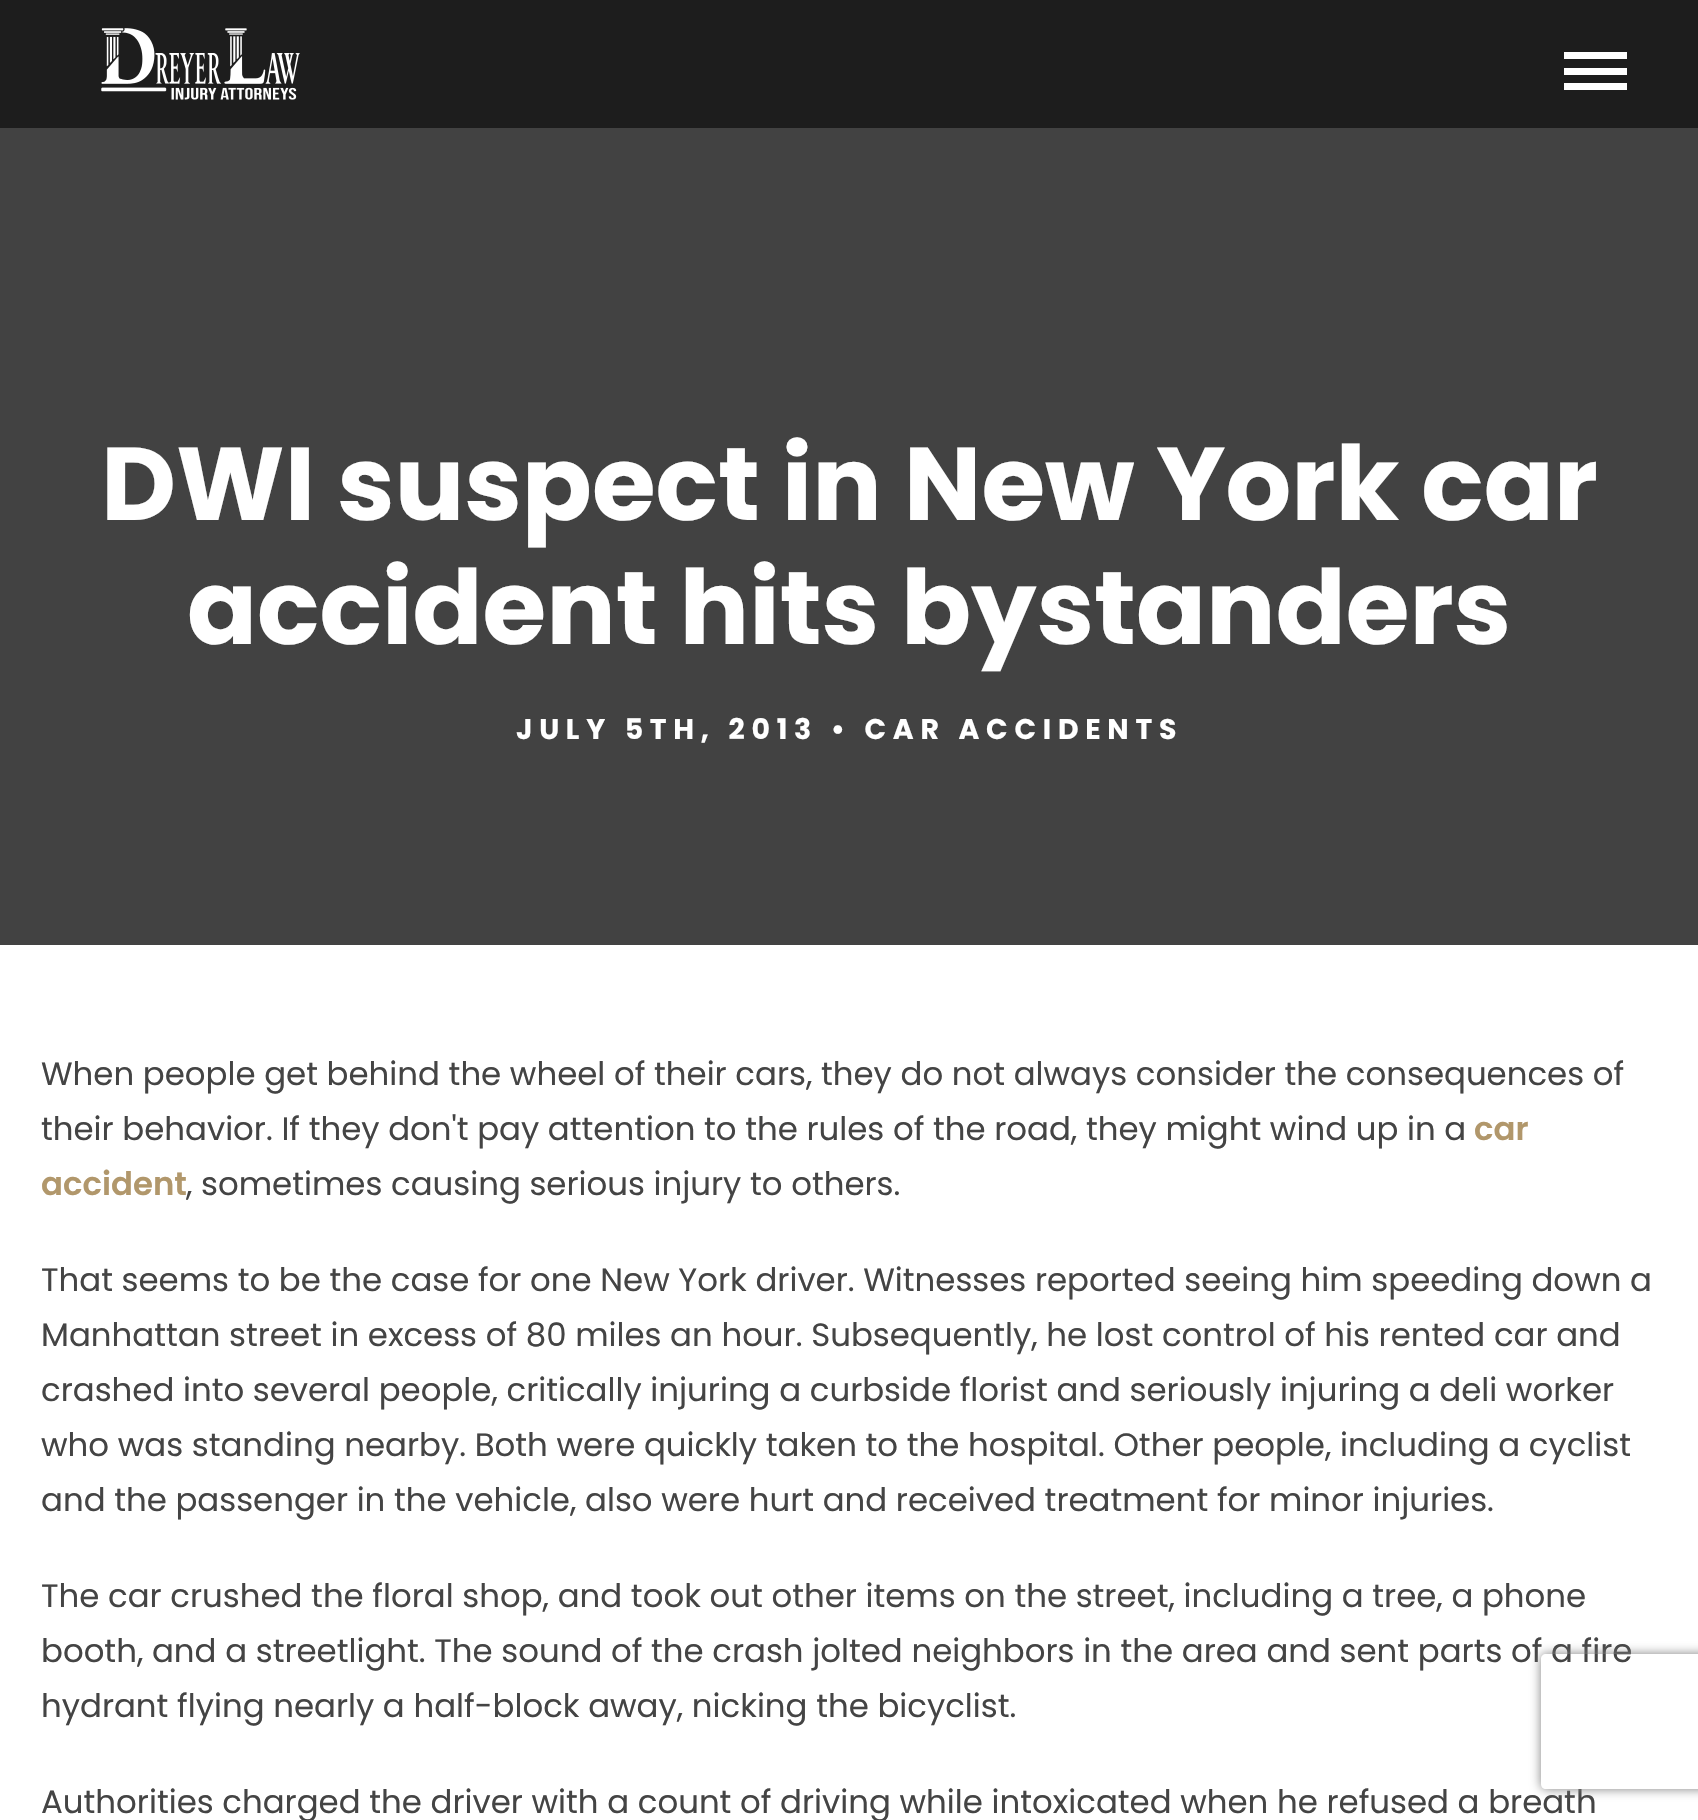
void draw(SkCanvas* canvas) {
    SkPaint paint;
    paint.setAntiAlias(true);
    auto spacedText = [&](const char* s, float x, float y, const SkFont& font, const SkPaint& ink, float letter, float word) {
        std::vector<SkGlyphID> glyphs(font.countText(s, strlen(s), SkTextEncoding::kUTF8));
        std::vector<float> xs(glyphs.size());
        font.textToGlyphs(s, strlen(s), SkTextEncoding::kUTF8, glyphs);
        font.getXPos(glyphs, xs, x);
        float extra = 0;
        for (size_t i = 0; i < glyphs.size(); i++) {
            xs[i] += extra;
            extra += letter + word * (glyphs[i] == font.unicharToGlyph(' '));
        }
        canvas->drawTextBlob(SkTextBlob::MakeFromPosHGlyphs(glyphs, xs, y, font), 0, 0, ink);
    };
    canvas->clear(0xFFFFFFFF);
    paint.setColor(0xFF1D1D1D);
    canvas->drawRect(SkRect::MakeXYWH(0, 0, 1698, 128), paint);
    canvas->drawImageRect(SkImages::DeferredFromEncodedData(SkData::MakeFromFileName("img1.png")), SkRect::MakeXYWH(101, 28, 199, 72), SkSamplingOptions());
    paint.setColor(0xFFFFFFFF);
    canvas->drawRect(SkRect::MakeXYWH(1564, 68, 63, 7), paint);
    canvas->drawRect(SkRect::MakeXYWH(1564, 52, 63, 7), paint);
    canvas->drawRect(SkRect::MakeXYWH(1564, 83, 63, 7), paint);
    paint.setColor(0xFF424242);
    canvas->drawRect(SkRect::MakeXYWH(0, 128, 1698, 817), paint);
    SkFont font1(fontMgr->matchFamilyStyle("Poppins", SkFontStyle::Bold()), 103.25f);
    font1.setSubpixel(true);
    paint.setColor(0xFFFFFFFF);
    canvas->drawString("DWI suspect in New York car", 101, 520, font1, paint);
    canvas->drawString("accident hits bystanders", 187, 644, font1, paint);
    SkFont font2(fontMgr->matchFamilyStyle("Poppins", SkFontStyle::Bold()), 28.35f);
    font2.setSubpixel(true);
    spacedText("JULY 5TH, 2013 • CAR ACCIDENTS", 516, 739, font2, paint, 6.75f, 0);
    SkFont font3(fontMgr->matchFamilyStyle("Poppins", SkFontStyle::Normal()), 32.4f);
    font3.setSubpixel(true);
    paint.setColor(0xFF444444);
    canvas->drawString("When people get behind the wheel of their cars, they do not always consider the consequences of", 41, 1085, font3, paint);
    canvas->drawString("their behavior. If they don't pay attention to the rules of the road, they might wind up in a", 41, 1140, font3, paint);
    SkFont font4(fontMgr->matchFamilyStyle("Poppins", SkFontStyle(600, SkFontStyle::kNormal_Width, SkFontStyle::kUpright_Slant)), 32.4f);
    font4.setSubpixel(true);
    paint.setColor(0xFFB1976B);
    canvas->drawString("car", 1474, 1140, font4, paint);
    canvas->drawString("accident", 41, 1195, font4, paint);
    paint.setColor(0xFF444444);
    canvas->drawString(", sometimes causing serious injury to others.", 186, 1195, font3, paint);
    canvas->drawString("That seems to be the case for one New York driver. Witnesses reported seeing him speeding down a", 41, 1291, font3, paint);
    canvas->drawString("Manhattan street in excess of 80 miles an hour. Subsequently, he lost control of his rented car and", 41, 1346, font3, paint);
    canvas->drawString("crashed into several people, critically injuring a curbside florist and seriously injuring a deli worker", 41, 1401, font3, paint);
    canvas->drawString("who was standing nearby. Both were quickly taken to the hospital. Other people, including a cyclist", 41, 1456, font3, paint);
    canvas->drawString("and the passenger in the vehicle, also were hurt and received treatment for minor injuries.", 41, 1511, font3, paint);
    canvas->drawString("The car crushed the floral shop, and took out other items on the street, including a tree, a phone", 41, 1607, font3, paint);
    canvas->drawString("booth, and a streetlight. The sound of the crash jolted neighbors in the area and sent parts of a fire", 41, 1662, font3, paint);
    canvas->drawString("hydrant flying nearly a half-block away, nicking the bicyclist.", 41, 1717, font3, paint);
    canvas->drawString("Authorities charged the driver with a count of driving while intoxicated when he refused a breath", 41, 1813, font3, paint);
    canvas->save();
    canvas->clipPath(SkPathBuilder(SkPathFillType::kEvenOdd).moveTo(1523, 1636).lineTo(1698, 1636).lineTo(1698, 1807).lineTo(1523, 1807).close().moveTo(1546, 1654).lineTo(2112, 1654).cubicTo(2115, 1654, 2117, 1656, 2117, 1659).lineTo(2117, 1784).cubicTo(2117, 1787, 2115, 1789, 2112, 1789).lineTo(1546, 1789).cubicTo(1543, 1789, 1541, 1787, 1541, 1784).lineTo(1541, 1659).cubicTo(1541, 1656, 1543, 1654, 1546, 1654).close().detach(), true);
    paint.setColor(0xFF808080);
    paint.setMaskFilter(SkMaskFilter::MakeBlur(kNormal_SkBlurStyle, 5.5f));
    canvas->drawRoundRect(SkRect::MakeXYWH(1541, 1654, 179, 135), 5, 5, paint);
    paint.setMaskFilter(nullptr);
    canvas->restore();
}
